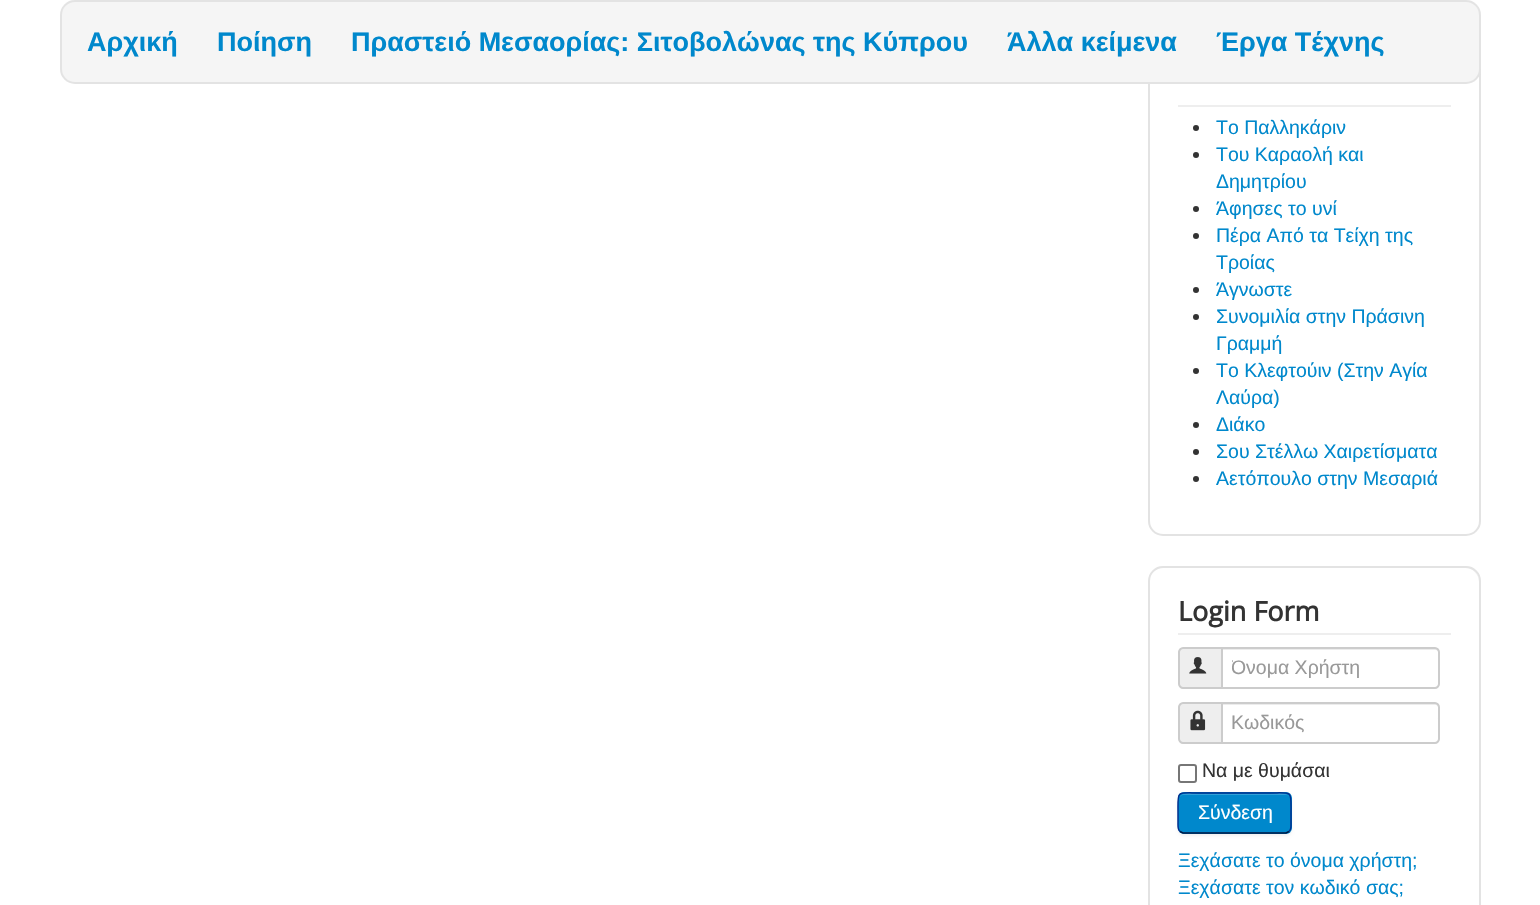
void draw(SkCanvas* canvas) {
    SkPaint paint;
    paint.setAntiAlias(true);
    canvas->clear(0xFFFFFFFF);
    paint.setStyle(SkPaint::kStroke_Style);
    paint.setStrokeWidth(2);
    paint.setColor(0xFFE3E3E3);
    canvas->drawRoundRect(SkRect::MakeXYWH(1149, 9, 331, 526), 14, 14, paint);
    paint.setStyle(SkPaint::kFill_Style);
    paint.setColor(0xFFF5F5F5);
    canvas->drawRoundRect(SkRect::MakeXYWH(60, 0, 1421, 84), 15, 15, paint);
    paint.setStyle(SkPaint::kStroke_Style);
    paint.setColor(0x12000000);
    canvas->drawRoundRect(SkRect::MakeXYWH(61, 1, 1419, 82), 14, 14, paint);
    SkFont font1(fontMgr->matchFamilyStyle("Liberation Sans", SkFontStyle::Bold()), 27);
    font1.setSubpixel(true);
    paint.setStyle(SkPaint::kFill_Style);
    paint.setColor(0xFF0088CC);
    canvas->drawString("Αρχική", 87, 51, font1, paint);
    canvas->drawString("Ποίηση", 217, 51, font1, paint);
    canvas->drawString("Πραστειό Μεσαορίας: Σιτοβολώνας της Κύπρου", 351, 51, font1, paint);
    canvas->drawString("Άλλα κείμενα", 1007, 51, font1, paint);
    canvas->drawString("Έργα Τέχνης", 1216, 51, font1, paint);
    paint.setColor(0xFFEEEEEE);
    canvas->drawRect(SkRect::MakeXYWH(1178, 105, 273, 2), paint);
    paint.setColor(0xFF333333);
    canvas->drawCircle(1196, 128, 3, paint);
    SkFont font2(fontMgr->matchFamilyStyle("Liberation Sans", SkFontStyle::Normal()), 19.5f);
    font2.setSubpixel(true);
    paint.setColor(0xFF0088CC);
    canvas->drawString("Το Παλληκάριν", 1216, 134, font2, paint);
    paint.setColor(0xFF333333);
    canvas->drawCircle(1196, 155, 3, paint);
    paint.setColor(0xFF0088CC);
    canvas->drawString("Του Καραολή και", 1216, 161, font2, paint);
    canvas->drawString("Δημητρίου", 1216, 188, font2, paint);
    paint.setColor(0xFF333333);
    canvas->drawCircle(1196, 209, 3, paint);
    paint.setColor(0xFF0088CC);
    canvas->drawString("Άφησες το υνί", 1216, 215, font2, paint);
    paint.setColor(0xFF333333);
    canvas->drawCircle(1196, 236, 3, paint);
    paint.setColor(0xFF0088CC);
    canvas->drawString("Πέρα Από τα Τείχη της", 1216, 242, font2, paint);
    canvas->drawString("Τροίας", 1216, 269, font2, paint);
    paint.setColor(0xFF333333);
    canvas->drawCircle(1196, 290, 3, paint);
    paint.setColor(0xFF0088CC);
    canvas->drawString("Άγνωστε", 1216, 296, font2, paint);
    paint.setColor(0xFF333333);
    canvas->drawCircle(1196, 317, 3, paint);
    paint.setColor(0xFF0088CC);
    canvas->drawString("Συνομιλία στην Πράσινη", 1216, 323, font2, paint);
    canvas->drawString("Γραμμή", 1216, 350, font2, paint);
    paint.setColor(0xFF333333);
    canvas->drawCircle(1196, 371, 3, paint);
    paint.setColor(0xFF0088CC);
    canvas->drawString("Το Κλεφτούιν (Στην Αγία", 1216, 377, font2, paint);
    canvas->drawString("Λαύρα)", 1216, 404, font2, paint);
    paint.setColor(0xFF333333);
    canvas->drawCircle(1196, 425, 3, paint);
    paint.setColor(0xFF0088CC);
    canvas->drawString("Διάκο", 1216, 431, font2, paint);
    paint.setColor(0xFF333333);
    canvas->drawCircle(1196, 452, 3, paint);
    paint.setColor(0xFF0088CC);
    canvas->drawString("Σου Στέλλω Χαιρετίσματα", 1216, 458, font2, paint);
    paint.setColor(0xFF333333);
    canvas->drawCircle(1196, 479, 3, paint);
    paint.setColor(0xFF0088CC);
    canvas->drawString("Αετόπουλο στην Μεσαριά", 1216, 485, font2, paint);
    paint.setColor(0xFFF2F2F2);
    canvas->drawPath(SkPathBuilder().moveTo(1162, 568).lineTo(1466, 568).cubicTo(1473, 568, 1479, 575, 1479, 582).lineTo(1479, 581).cubicTo(1479, 573, 1473, 567, 1465, 567).lineTo(1163, 567).cubicTo(1155, 567, 1149, 573, 1149, 581).lineTo(1149, 582).cubicTo(1149, 575, 1155, 568, 1162, 568).close().detach(), paint);
    paint.setStyle(SkPaint::kStroke_Style);
    paint.setColor(0xFFE3E3E3);
    canvas->drawRoundRect(SkRect::MakeXYWH(1149, 567, 331, 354), 14, 14, paint);
    paint.setStyle(SkPaint::kFill_Style);
    paint.setColor(0xFFEEEEEE);
    canvas->drawRect(SkRect::MakeXYWH(1178, 633, 273, 2), paint);
    SkFont font3(fontMgr->matchFamilyStyle("Open Sans", SkFontStyle::Bold()), 27);
    font3.setSubpixel(true);
    paint.setColor(0xFF333333);
    canvas->drawString("Login Form", 1178, 621, font3, paint);
    paint.setColor(0xFFEEEEEE);
    canvas->drawPath(SkPathBuilder().moveTo(1183, 648).lineTo(1222, 648).lineTo(1222, 688).lineTo(1183, 688).cubicTo(1181, 688, 1179, 686, 1179, 684).lineTo(1179, 652).cubicTo(1179, 650, 1181, 648, 1183, 648).close().detach(), paint);
    paint.setStyle(SkPaint::kStroke_Style);
    paint.setColor(0xFFCCCCCC);
    canvas->drawPath(SkPathBuilder().moveTo(1183, 648).lineTo(1222, 648).lineTo(1222, 688).lineTo(1183, 688).cubicTo(1181, 688, 1179, 686, 1179, 684).lineTo(1179, 652).cubicTo(1179, 650, 1181, 648, 1183, 648).close().detach(), paint);
    canvas->drawImageRect(SkImages::DeferredFromEncodedData(SkData::MakeFromFileName("img1.png")), SkRect::MakeXYWH(1189, 657, 18, 17), SkSamplingOptions());
    paint.setStyle(SkPaint::kFill_Style);
    paint.setColor(0xFFFFFFFF);
    canvas->drawPath(SkPathBuilder().moveTo(1221, 647).lineTo(1435, 647).cubicTo(1438, 647, 1440, 649, 1440, 652).lineTo(1440, 684).cubicTo(1440, 687, 1438, 689, 1435, 689).lineTo(1221, 689).close().detach(), paint);
    paint.setColor(0xFFECECEC);
    canvas->drawPath(SkPathBuilder().moveTo(1223, 648).lineTo(1223, 650).lineTo(1436, 650).cubicTo(1437, 650, 1438, 651, 1438, 652).lineTo(1438, 686).cubicTo(1439, 686, 1439, 685, 1439, 684).lineTo(1439, 651).cubicTo(1439, 649, 1438, 648, 1436, 648).close().detach(), paint);
    paint.setStyle(SkPaint::kStroke_Style);
    paint.setColor(0xFFCCCCCC);
    canvas->drawPath(SkPathBuilder().moveTo(1222, 648).lineTo(1435, 648).cubicTo(1437, 648, 1439, 650, 1439, 652).lineTo(1439, 684).cubicTo(1439, 686, 1437, 688, 1435, 688).lineTo(1222, 688).close().detach(), paint);
    canvas->save();
    canvas->clipRect(SkRect::MakeXYWH(1232, 656, 198, 22));
    paint.setStyle(SkPaint::kFill_Style);
    paint.setColor(0xFF999999);
    canvas->drawString("Όνομα Χρήστη", 1231, 674, font2, paint);
    canvas->restore();
    paint.setColor(0xFFEEEEEE);
    canvas->drawPath(SkPathBuilder().moveTo(1183, 703).lineTo(1222, 703).lineTo(1222, 743).lineTo(1183, 743).cubicTo(1181, 743, 1179, 741, 1179, 739).lineTo(1179, 707).cubicTo(1179, 705, 1181, 703, 1183, 703).close().detach(), paint);
    paint.setStyle(SkPaint::kStroke_Style);
    paint.setColor(0xFFCCCCCC);
    canvas->drawPath(SkPathBuilder().moveTo(1183, 703).lineTo(1222, 703).lineTo(1222, 743).lineTo(1183, 743).cubicTo(1181, 743, 1179, 741, 1179, 739).lineTo(1179, 707).cubicTo(1179, 705, 1181, 703, 1183, 703).close().detach(), paint);
    canvas->drawImageRect(SkImages::DeferredFromEncodedData(SkData::MakeFromFileName("img2.png")), SkRect::MakeXYWH(1190, 710, 16, 21), SkSamplingOptions());
    paint.setStyle(SkPaint::kFill_Style);
    paint.setColor(0xFFFFFFFF);
    canvas->drawPath(SkPathBuilder().moveTo(1221, 702).lineTo(1435, 702).cubicTo(1438, 702, 1440, 704, 1440, 707).lineTo(1440, 739).cubicTo(1440, 742, 1438, 744, 1435, 744).lineTo(1221, 744).close().detach(), paint);
    paint.setColor(0xFFECECEC);
    canvas->drawPath(SkPathBuilder().moveTo(1223, 704).lineTo(1223, 705).lineTo(1436, 705).cubicTo(1440, 705, 1438, 718, 1438, 719).lineTo(1438, 742).cubicTo(1439, 742, 1439, 741, 1439, 740).lineTo(1439, 707).cubicTo(1439, 705, 1438, 704, 1436, 704).close().detach(), paint);
    paint.setStyle(SkPaint::kStroke_Style);
    paint.setColor(0xFFCCCCCC);
    canvas->drawPath(SkPathBuilder().moveTo(1222, 703).lineTo(1435, 703).cubicTo(1437, 703, 1439, 705, 1439, 707).lineTo(1439, 739).cubicTo(1439, 741, 1437, 743, 1435, 743).lineTo(1222, 743).close().detach(), paint);
    paint.setStyle(SkPaint::kFill_Style);
    paint.setColor(0xFF999999);
    canvas->drawString("Κωδικός", 1231, 729, font2, paint);
    paint.setStyle(SkPaint::kStroke_Style);
    paint.setColor(0xFF767676);
    canvas->drawRoundRect(SkRect::MakeXYWH(1179, 765, 17, 17), 2, 2, paint);
    paint.setStyle(SkPaint::kFill_Style);
    paint.setColor(0xFF333333);
    canvas->drawString("Να με θυμάσαι", 1202, 777, font2, paint);
    paint.setColor(0x0D000000);
    paint.setMaskFilter(SkMaskFilter::MakeBlur(kNormal_SkBlurStyle, 1.5f));
    canvas->drawRoundRect(SkRect::MakeXYWH(1178, 794, 114, 42), 6, 6, paint);
    paint.setMaskFilter(nullptr);
    paint.setColor(0xFF0088CC);
    canvas->drawRoundRect(SkRect::MakeXYWH(1178, 792, 114, 42), 6, 6, paint);
    paint.setColor(0xFF33A0D6);
    canvas->drawPath(SkPathBuilder().moveTo(1184, 795).lineTo(1286, 795).cubicTo(1288, 795, 1290, 797, 1290, 800).cubicTo(1290, 790, 1273, 794, 1268, 794).lineTo(1201, 794).cubicTo(1196, 794, 1179, 790, 1179, 800).cubicTo(1179, 797, 1181, 795, 1184, 795).close().detach(), paint);
    paint.setStyle(SkPaint::kStroke_Style);
    paint.setStrokeWidth(1.5f);
    paint.setColor(0xFF001641);
    canvas->drawPath(SkPathBuilder().moveTo(1289, 831.5f).lineTo(1286, 833).lineTo(1183, 833).lineTo(1180, 831.5f).detach(), paint);
    paint.setColor(0xFF002F8D);
    canvas->drawPath(SkPathBuilder().moveTo(1180, 831.5f).cubicTo(1177.5f, 829.5f, 1178, 826, 1178, 823).lineTo(1178, 813).cubicTo(1178, 789.5f, 1175.5f, 793, 1200.5f, 793).lineTo(1268.5f, 793).cubicTo(1293.5f, 793, 1291, 789.5f, 1291, 813).lineTo(1291, 823).cubicTo(1291, 826, 1291.5f, 829.5f, 1289, 831.5f).detach(), paint);
    paint.setStyle(SkPaint::kFill_Style);
    paint.setColor(0xFFFFFFFF);
    canvas->drawString("Σύνδεση", 1198, 819, font2, paint);
    paint.setColor(0xFF0088CC);
    canvas->drawString("Ξεχάσατε το όνομα χρήστη;", 1178, 867, font2, paint);
    canvas->drawString("Ξεχάσατε τον κωδικό σας;", 1178, 894, font2, paint);
}
